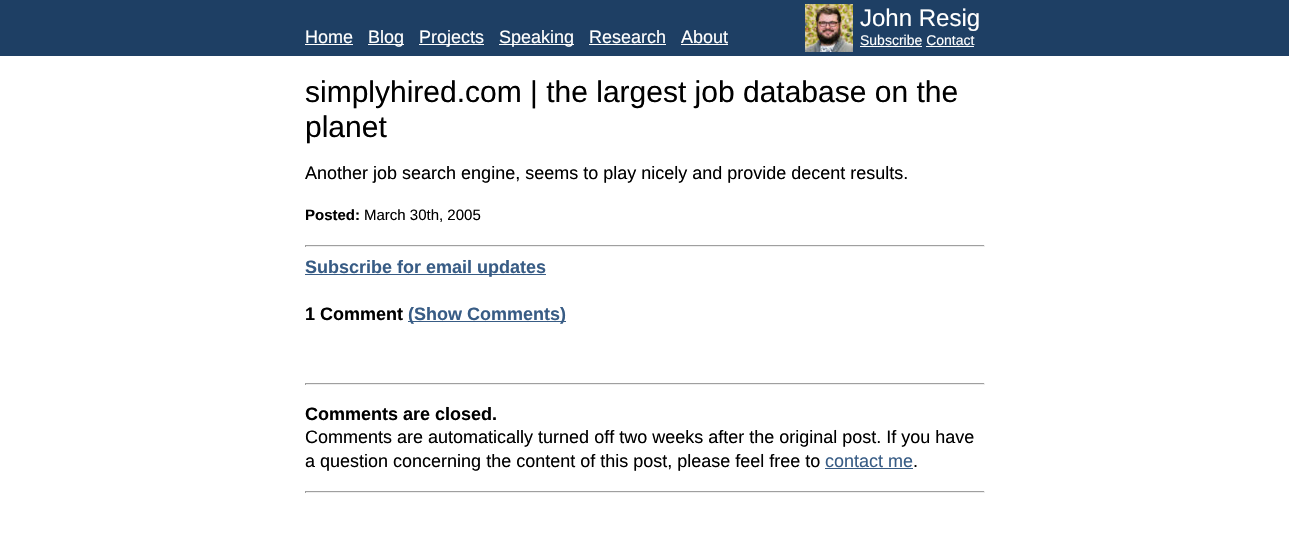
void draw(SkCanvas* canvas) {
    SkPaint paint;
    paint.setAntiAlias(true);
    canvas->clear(0xFF1E3F64);
    SkFont font1(fontMgr->matchFamilyStyle("Liberation Sans", SkFontStyle::Normal()), 18);
    font1.setSubpixel(true);
    paint.setColor(0xFFFFFFFF);
    canvas->drawString("Home", 305, 43, font1, paint);
    canvas->drawRect(SkRect::MakeXYWH(305, 44, 48, 1), paint);
    canvas->drawRect(SkRect::MakeXYWH(368, 44, 36, 1), paint);
    canvas->drawString("Blog", 368, 43, font1, paint);
    canvas->drawRect(SkRect::MakeXYWH(419, 44, 65, 1), paint);
    canvas->drawString("Projects", 419, 43, font1, paint);
    canvas->drawRect(SkRect::MakeXYWH(499, 44, 75, 1), paint);
    canvas->drawString("Speaking", 499, 43, font1, paint);
    canvas->drawString("Research", 589, 43, font1, paint);
    canvas->drawRect(SkRect::MakeXYWH(589, 44, 77, 1), paint);
    canvas->drawString("About", 681, 43, font1, paint);
    canvas->drawRect(SkRect::MakeXYWH(681, 44, 47, 1), paint);
    canvas->drawImageRect(SkImages::DeferredFromEncodedData(SkData::MakeFromFileName("img1.png")), SkRect::MakeXYWH(805, 4, 48, 48), SkSamplingOptions());
    SkFont font2(fontMgr->matchFamilyStyle("Liberation Sans", SkFontStyle::Normal()), 24);
    font2.setSubpixel(true);
    canvas->drawString("John Resig", 860, 26, font2, paint);
    SkFont font3(fontMgr->matchFamilyStyle("Liberation Sans", SkFontStyle::Normal()), 14);
    font3.setSubpixel(true);
    canvas->drawString("Subscribe Contact", 860, 45, font3, paint);
    canvas->drawRect(SkRect::MakeXYWH(860, 46, 62, 1), paint);
    canvas->drawRect(SkRect::MakeXYWH(926, 46, 48, 1), paint);
    canvas->drawRect(SkRect::MakeXYWH(0, 56, 1289, 504), paint);
    SkFont font4(fontMgr->matchFamilyStyle("Liberation Sans", SkFontStyle::Normal()), 30);
    font4.setSubpixel(true);
    paint.setColor(0xFF000000);
    canvas->drawString("simplyhired.com | the largest job database on the", 305, 102, font4, paint);
    canvas->drawString("planet", 305, 137, font4, paint);
    canvas->drawString("Another job search engine, seems to play nicely and provide decent results.", 305, 179, font1, paint);
    SkFont font5(fontMgr->matchFamilyStyle("Liberation Sans", SkFontStyle::Bold()), 15);
    font5.setSubpixel(true);
    canvas->drawString("Posted:", 305, 220, font5, paint);
    SkFont font6(fontMgr->matchFamilyStyle("Liberation Sans", SkFontStyle::Normal()), 15);
    font6.setSubpixel(true);
    canvas->drawString("March 30th, 2005", 364, 220, font6, paint);
    paint.setColor(0xFF9F9F9F);
    canvas->drawRect(SkRect::MakeXYWH(305, 245, 680, 1), paint);
    paint.setColor(0xFFEEEEEE);
    canvas->drawRect(SkRect::MakeXYWH(984, 245, 1, 2), paint);
    canvas->drawRect(SkRect::MakeXYWH(305, 246, 680, 1), paint);
    paint.setColor(0xFF9F9F9F);
    canvas->drawRect(SkRect::MakeXYWH(305, 245, 1, 2), paint);
    paint.setColor(0xFF385C85);
    canvas->drawRect(SkRect::MakeXYWH(305, 274, 241, 1), paint);
    SkFont font7(fontMgr->matchFamilyStyle("Liberation Sans", SkFontStyle::Bold()), 18);
    font7.setSubpixel(true);
    canvas->drawString("Subscribe for email updates", 305, 273, font7, paint);
    paint.setColor(0xFF000000);
    canvas->drawString("1 Comment", 305, 320, font7, paint);
    paint.setColor(0xFF385C85);
    canvas->drawRect(SkRect::MakeXYWH(408, 321, 158, 1), paint);
    canvas->drawString("(Show Comments)", 408, 320, font7, paint);
    paint.setColor(0xFF9F9F9F);
    canvas->drawRect(SkRect::MakeXYWH(305, 383, 680, 1), paint);
    paint.setColor(0xFFEEEEEE);
    canvas->drawRect(SkRect::MakeXYWH(984, 383, 1, 2), paint);
    canvas->drawRect(SkRect::MakeXYWH(305, 384, 680, 1), paint);
    paint.setColor(0xFF9F9F9F);
    canvas->drawRect(SkRect::MakeXYWH(305, 383, 1, 2), paint);
    paint.setColor(0xFF000000);
    canvas->drawString("Comments are closed.", 305, 420, font7, paint);
    canvas->drawString("Comments are automatically turned off two weeks after the original post. If you have", 305, 443, font1, paint);
    canvas->drawString("a question concerning the content of this post, please feel free to", 305, 467, font1, paint);
    paint.setColor(0xFF385C85);
    canvas->drawString("contact me", 825, 467, font1, paint);
    canvas->drawRect(SkRect::MakeXYWH(825, 468, 88, 1), paint);
    paint.setColor(0xFF000000);
    canvas->drawString(".", 913, 467, font1, paint);
    paint.setColor(0xFF9F9F9F);
    canvas->drawRect(SkRect::MakeXYWH(305, 491, 680, 1), paint);
    paint.setColor(0xFFEEEEEE);
    canvas->drawRect(SkRect::MakeXYWH(984, 491, 1, 2), paint);
    canvas->drawRect(SkRect::MakeXYWH(305, 492, 680, 1), paint);
    paint.setColor(0xFF9F9F9F);
    canvas->drawRect(SkRect::MakeXYWH(305, 491, 1, 2), paint);
}
